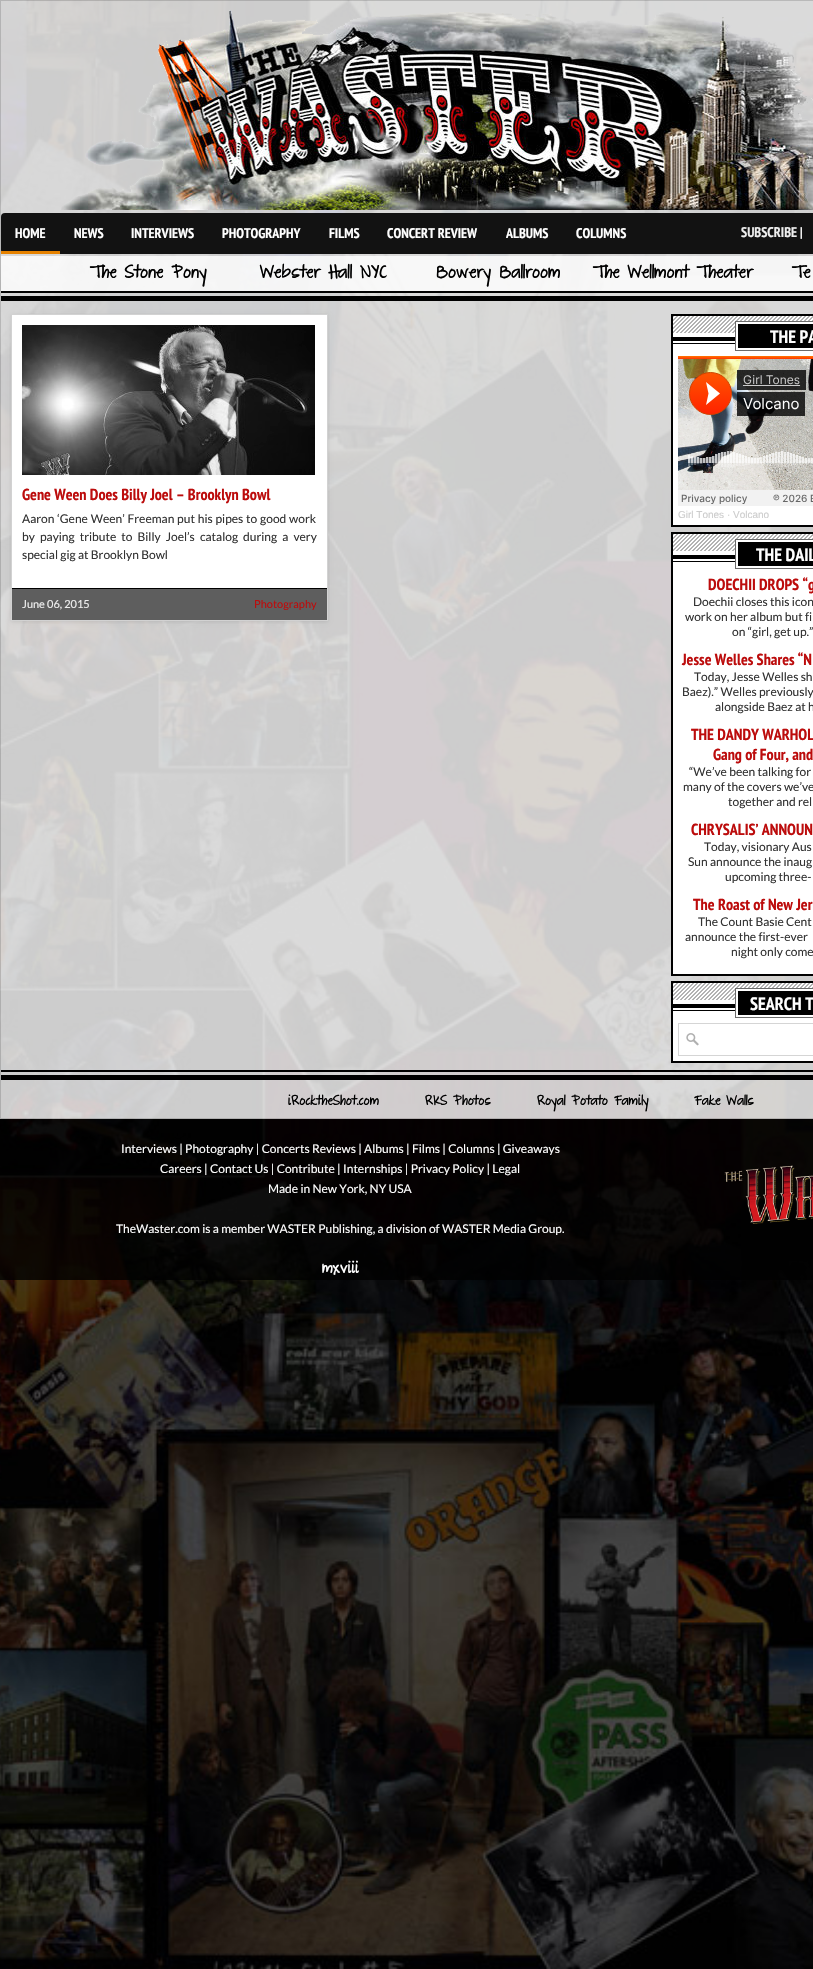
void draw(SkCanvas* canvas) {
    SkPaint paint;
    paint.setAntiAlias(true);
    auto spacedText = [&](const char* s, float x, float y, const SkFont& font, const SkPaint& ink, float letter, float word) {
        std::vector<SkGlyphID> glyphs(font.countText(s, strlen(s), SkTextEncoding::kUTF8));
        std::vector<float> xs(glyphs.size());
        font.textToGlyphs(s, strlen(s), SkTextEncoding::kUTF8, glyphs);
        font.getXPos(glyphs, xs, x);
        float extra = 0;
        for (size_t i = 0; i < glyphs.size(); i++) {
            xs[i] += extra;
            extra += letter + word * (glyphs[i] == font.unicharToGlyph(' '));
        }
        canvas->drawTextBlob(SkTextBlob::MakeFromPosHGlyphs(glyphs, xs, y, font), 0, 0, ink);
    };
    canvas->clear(0xFFFFFFFF);
    canvas->drawImageRect(SkImages::DeferredFromEncodedData(SkData::MakeFromFileName("img1.png")), SkRect::MakeXYWH(0, 0, 813, 1969), SkSamplingOptions());
    paint.setColor(0xCCFFFFFF);
    canvas->drawRect(SkRect::MakeXYWH(0, 0, 813, 1119), paint);
    paint.setStyle(SkPaint::kStroke_Style);
    paint.setStrokeWidth(1);
    paint.setColor(0x26000000);
    canvas->drawRect(SkRect::MakeXYWH(0.5f, 0.5f, 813, 1118), paint);
    canvas->drawImageRect(SkImages::DeferredFromEncodedData(SkData::MakeFromFileName("img2.png")), SkRect::MakeXYWH(61, 10, 752, 200), SkSamplingOptions());
    paint.setStyle(SkPaint::kFill_Style);
    paint.setColor(0xFF121212);
    canvas->drawRoundRect(SkRect::MakeXYWH(1, 213, 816, 41), 4, 4, paint);
    paint.setColor(0xFFE68200);
    canvas->drawRect(SkRect::MakeXYWH(1, 251, 59, 3), paint);
    SkFont font1(fontMgr->matchFamilyStyle("PT Sans Narrow", SkFontStyle::Bold()), 14);
    font1.setSubpixel(true);
    paint.setColor(0xFFFFFFFF);
    canvas->drawString("HOME", 15, 238, font1, paint);
    canvas->drawString("NEWS", 74, 238, font1, paint);
    canvas->drawString("INTERVIEWS", 131, 238, font1, paint);
    canvas->drawString("PHOTOGRAPHY", 222, 238, font1, paint);
    canvas->drawString("FILMS", 329, 238, font1, paint);
    canvas->drawString("CONCERT REVIEW", 387, 238, font1, paint);
    canvas->drawString("ALBUMS", 506, 238, font1, paint);
    canvas->drawString("COLUMNS", 576, 238, font1, paint);
    paint.setColor(0xFFEEEEEE);
    canvas->drawString("SUBSCRIBE |", 741, 237, font1, paint);
    paint.setColor(0xCCFFFFFF);
    canvas->drawRect(SkRect::MakeXYWH(1, 256, 812, 35), paint);
    SkFont font2(fontMgr->matchFamilyStyle("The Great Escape", SkFontStyle::Bold()), 16);
    font2.setSubpixel(true);
    paint.setColor(0xFF000000);
    canvas->drawString("The Stone Pony", 90, 278, font2, paint);
    canvas->drawString("Webster Hall NYC", 260, 278, font2, paint);
    canvas->drawString("Bowery Ballroom", 436, 278, font2, paint);
    canvas->drawString("The Wellmont Theater", 593, 278, font2, paint);
    canvas->drawString("Te", 792, 278, font2, paint);
    canvas->drawImageRect(SkImages::DeferredFromEncodedData(SkData::MakeFromFileName("img3.png")), SkRect::MakeXYWH(1, 291, 812, 10), SkSamplingOptions());
    paint.setColor(0x1A000000);
    paint.setMaskFilter(SkMaskFilter::MakeBlur(kNormal_SkBlurStyle, 2));
    canvas->drawRect(SkRect::MakeXYWH(11, 315, 317, 307), paint);
    paint.setMaskFilter(nullptr);
    paint.setColor(0xFFFFFFFF);
    canvas->drawRect(SkRect::MakeXYWH(12, 315, 315, 273), paint);
    paint.setStyle(SkPaint::kStroke_Style);
    paint.setColor(0xFFD2D2D2);
    canvas->drawRect(SkRect::MakeXYWH(11.5f, 314.5f, 316, 306), paint);
    canvas->drawImageRect(SkImages::DeferredFromEncodedData(SkData::MakeFromFileName("img4.png")), SkRect::MakeXYWH(22, 325, 293, 150), SkSamplingOptions());
    SkFont font3(fontMgr->matchFamilyStyle("PT Sans Narrow", SkFontStyle::Bold()), 16);
    font3.setSubpixel(true);
    paint.setStyle(SkPaint::kFill_Style);
    paint.setColor(0xFFBC0C0C);
    canvas->drawString("Gene Ween Does Billy Joel – Brooklyn Bowl", 22, 500, font3, paint);
    SkFont font4(fontMgr->matchFamilyStyle("Lato", SkFontStyle::Normal()), 12);
    font4.setSubpixel(true);
    paint.setColor(0xFF333333);
    spacedText("Aaron ‘Gene Ween’ Freeman put his pipes to good work", 22, 523, font4, paint, 0, 0.5f);
    spacedText("by paying tribute to Billy Joel’s catalog during a very", 22, 541, font4, paint, 0, 2.75f);
    canvas->drawString("special gig at Brooklyn Bowl", 22, 559, font4, paint);
    paint.setColor(0xFF5E5E5E);
    canvas->drawRect(SkRect::MakeXYWH(12, 589, 315, 31), paint);
    paint.setColor(0xFF000000);
    canvas->drawRect(SkRect::MakeXYWH(12, 588, 315, 1), paint);
    SkFont font5(fontMgr->matchFamilyStyle("Lato", SkFontStyle::Normal()), 11);
    font5.setSubpixel(true);
    paint.setColor(0xFFEEEEEE);
    canvas->drawString("June 06, 2015", 22, 608, font5, paint);
    paint.setColor(0xFFBC0C0C);
    canvas->drawString("Photography", 254, 608, font5, paint);
    canvas->drawImageRect(SkImages::DeferredFromEncodedData(SkData::MakeFromFileName("img5.png")), SkRect::MakeXYWH(673, 316, 140, 209), SkSamplingOptions());
    paint.setStyle(SkPaint::kStroke_Style);
    paint.setStrokeWidth(2);
    paint.setColor(0xFF000000);
    canvas->drawRect(SkRect::MakeXYWH(672, 315, 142, 211), paint);
    SkFont font6(fontMgr->matchFamilyStyle("PT Sans Narrow", SkFontStyle::Bold()), 18);
    font6.setSubpixel(true);
    paint.setStyle(SkPaint::kFill_Style);
    paint.setColor(0xFFFFFFFF);
    canvas->drawString("THE PA", 770, 343, font6, paint);
    canvas->drawImageRect(SkImages::DeferredFromEncodedData(SkData::MakeFromFileName("img6.png")), SkRect::MakeXYWH(678, 356, 135, 150), SkSamplingOptions());
    SkFont font7(fontMgr->matchFamilyStyle("Liberation Sans", SkFontStyle::Normal()), 10);
    font7.setSubpixel(true);
    paint.setColor(0xFFCCCCCC);
    canvas->drawString("Girl Tones · Volcano", 678, 518, font7, paint);
    canvas->drawImageRect(SkImages::DeferredFromEncodedData(SkData::MakeFromFileName("img7.png")), SkRect::MakeXYWH(673, 534, 140, 440), SkSamplingOptions());
    paint.setStyle(SkPaint::kStroke_Style);
    paint.setColor(0xFF000000);
    canvas->drawRect(SkRect::MakeXYWH(672, 533, 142, 442), paint);
    paint.setStyle(SkPaint::kFill_Style);
    paint.setColor(0xFFFFFFFF);
    canvas->drawString("THE DAIL", 756, 561, font6, paint);
    paint.setColor(0xFFBC0C0C);
    canvas->drawString("DOECHII DROPS “g", 708, 590, font3, paint);
    paint.setColor(0xFF333333);
    canvas->drawString("Doechii closes this icon", 693, 606, font4, paint);
    canvas->drawString("work on her album but fi", 685, 621, font4, paint);
    canvas->drawString("on “girl, get up.”", 732, 636, font4, paint);
    paint.setColor(0xFFBC0C0C);
    canvas->drawString("Jesse Welles Shares “N", 682, 665, font3, paint);
    paint.setColor(0xFF333333);
    canvas->drawString("Today, Jesse Welles sh", 694, 681, font4, paint);
    canvas->drawString("Baez).” Welles previously", 682, 696, font4, paint);
    canvas->drawString("alongside Baez at h", 715, 711, font4, paint);
    paint.setColor(0xFFBC0C0C);
    canvas->drawString("THE DANDY WARHOL", 691, 740, font3, paint);
    canvas->drawString("Gang of Four, and", 713, 760, font3, paint);
    paint.setColor(0xFF333333);
    canvas->drawString("“We’ve been talking for", 689, 776, font4, paint);
    canvas->drawString("many of the covers we’ve", 683, 791, font4, paint);
    canvas->drawString("together and rel", 728, 806, font4, paint);
    paint.setColor(0xFFBC0C0C);
    canvas->drawString("CHRYSALIS’ ANNOUN", 691, 835, font3, paint);
    paint.setColor(0xFF333333);
    canvas->drawString("Today, visionary Aus", 704, 851, font4, paint);
    canvas->drawString("Sun announce the inaug", 688, 866, font4, paint);
    canvas->drawString("upcoming three-", 725, 881, font4, paint);
    paint.setColor(0xFFBC0C0C);
    canvas->drawString("The Roast of New Jer", 693, 910, font3, paint);
    paint.setColor(0xFF333333);
    canvas->drawString("The Count Basie Cent", 698, 926, font4, paint);
    canvas->drawString("announce the first-ever", 685, 941, font4, paint);
    canvas->drawString("night only come", 731, 956, font4, paint);
    canvas->drawImageRect(SkImages::DeferredFromEncodedData(SkData::MakeFromFileName("img8.png")), SkRect::MakeXYWH(673, 983, 140, 78), SkSamplingOptions());
    paint.setStyle(SkPaint::kStroke_Style);
    paint.setColor(0xFF000000);
    canvas->drawRect(SkRect::MakeXYWH(672, 982, 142, 80), paint);
    paint.setStyle(SkPaint::kFill_Style);
    paint.setColor(0xFFFFFFFF);
    canvas->drawString("SEARCH T", 750, 1010, font6, paint);
    canvas->drawImageRect(SkImages::DeferredFromEncodedData(SkData::MakeFromFileName("img9.png")), SkRect::MakeXYWH(686, 1033, 13, 13), SkSamplingOptions());
    paint.setStyle(SkPaint::kStroke_Style);
    paint.setStrokeWidth(1);
    paint.setColor(0xFFD5D5D5);
    canvas->drawRect(SkRect::MakeXYWH(678.5f, 1023.5f, 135, 32), paint);
    canvas->drawImageRect(SkImages::DeferredFromEncodedData(SkData::MakeFromFileName("img10.png")), SkRect::MakeXYWH(1, 1070, 812, 10), SkSamplingOptions());
    SkFont font8(fontMgr->matchFamilyStyle("The Great Escape", SkFontStyle::Bold()), 12);
    font8.setSubpixel(true);
    paint.setStyle(SkPaint::kFill_Style);
    paint.setColor(0xFF000000);
    canvas->drawString("iRocktheShot.com", 288, 1105, font8, paint);
    canvas->drawString("RKS Photos", 425, 1105, font8, paint);
    canvas->drawString("Royal Potato Family", 537, 1105, font8, paint);
    canvas->drawString("Fake Walls", 694, 1105, font8, paint);
    paint.setColor(0xCC000000);
    canvas->drawRect(SkRect::MakeXYWH(0, 1119, 813, 161), paint);
    paint.setColor(0xFFFFFFFF);
    canvas->drawString("Interviews | Photography | Concerts Reviews | Albums | Films | Columns | Giveaways", 121, 1153, font4, paint);
    canvas->drawString("Careers | Contact Us | Contribute | Internships | Privacy Policy | Legal", 160, 1173, font4, paint);
    canvas->drawImageRect(SkImages::DeferredFromEncodedData(SkData::MakeFromFileName("img11.png")), SkRect::MakeXYWH(724, 1165, 89, 59), SkSamplingOptions());
    canvas->drawString("Made in New York, NY USA", 268, 1193, font4, paint);
    canvas->drawString("TheWaster.com is a member WASTER Publishing, a division of WASTER Media Group.", 116, 1233, font4, paint);
    SkFont font9(fontMgr->matchFamilyStyle("The Great Escape", SkFontStyle::Bold()), 14);
    font9.setSubpixel(true);
    canvas->drawString("mxviii", 322, 1273, font9, paint);
}
